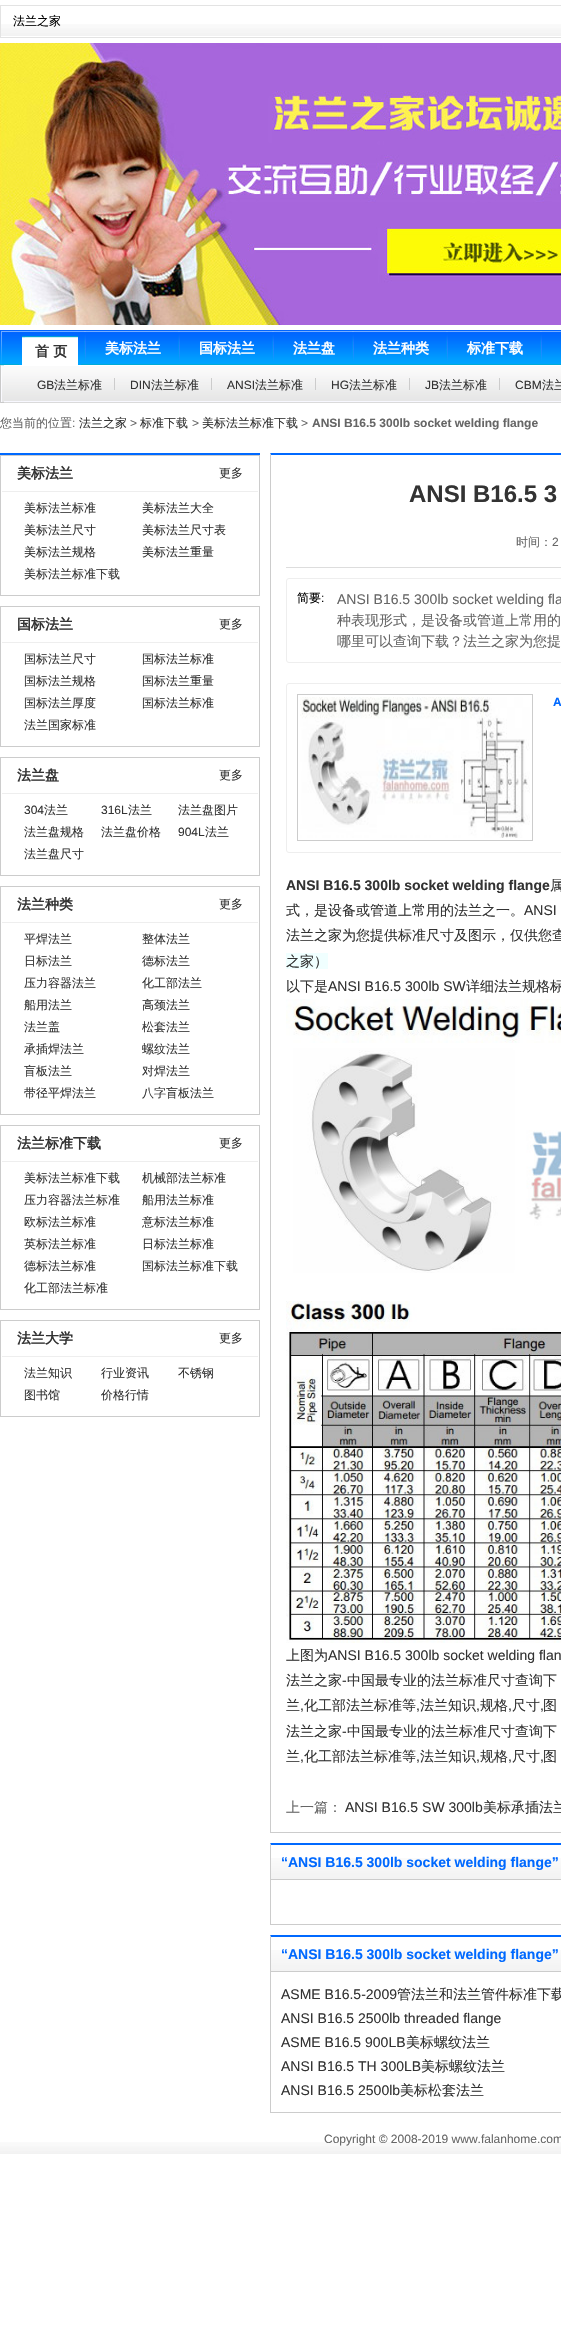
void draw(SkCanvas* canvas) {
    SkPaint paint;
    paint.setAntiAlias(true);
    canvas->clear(0xFFFFFFFF);
    canvas->drawImageRect(SkImages::DeferredFromEncodedData(SkData::MakeFromFileName("img1.png")), SkRect::MakeXYWH(1, 24, 560, 12), SkSamplingOptions());
    paint.setStyle(SkPaint::kStroke_Style);
    paint.setStrokeWidth(1);
    paint.setColor(0xFFE3E3E3);
    canvas->drawRect(SkRect::MakeXYWH(0.5f, 5.5f, 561, 32), paint);
    SkFont font1(fontMgr->matchFamilyStyle("WenQuanYi Zen Hei", SkFontStyle(500, SkFontStyle::kNormal_Width, SkFontStyle::kUpright_Slant)), 12);
    font1.setSubpixel(true);
    paint.setStyle(SkPaint::kFill_Style);
    paint.setColor(0xFF000000);
    canvas->drawString("法兰之家", 13, 25, font1, paint);
    canvas->drawImageRect(SkImages::DeferredFromEncodedData(SkData::MakeFromFileName("img2.png")), SkRect::MakeXYWH(0, 43, 561, 282), SkSamplingOptions());
    canvas->drawImageRect(SkImages::DeferredFromEncodedData(SkData::MakeFromFileName("img3.png")), SkRect::MakeXYWH(0, 330, 4, 73), SkSamplingOptions());
    canvas->drawImageRect(SkImages::DeferredFromEncodedData(SkData::MakeFromFileName("img4.png")), SkRect::MakeXYWH(4, 330, 557, 73), SkSamplingOptions());
    canvas->drawImageRect(SkImages::DeferredFromEncodedData(SkData::MakeFromFileName("img5.png")), SkRect::MakeXYWH(19, 336, 6, 29), SkSamplingOptions());
    canvas->drawImageRect(SkImages::DeferredFromEncodedData(SkData::MakeFromFileName("img6.png")), SkRect::MakeXYWH(25, 336, 56, 29), SkSamplingOptions());
    SkFont font2(fontMgr->matchFamilyStyle("WenQuanYi Zen Hei", SkFontStyle::Bold()), 14);
    font2.setSubpixel(true);
    paint.setColor(0xFF333333);
    canvas->drawString("首 页", 35, 356, font2, paint);
    canvas->drawImageRect(SkImages::DeferredFromEncodedData(SkData::MakeFromFileName("img7.png")), SkRect::MakeXYWH(84, 331, 2, 30), SkSamplingOptions());
    paint.setColor(0xFFFFFFFF);
    canvas->drawString("美标法兰", 105, 353, font2, paint);
    canvas->drawImageRect(SkImages::DeferredFromEncodedData(SkData::MakeFromFileName("img7.png")), SkRect::MakeXYWH(178, 331, 2, 30), SkSamplingOptions());
    canvas->drawString("国标法兰", 199, 353, font2, paint);
    canvas->drawImageRect(SkImages::DeferredFromEncodedData(SkData::MakeFromFileName("img7.png")), SkRect::MakeXYWH(272, 331, 2, 30), SkSamplingOptions());
    canvas->drawString("法兰盘", 293, 353, font2, paint);
    canvas->drawImageRect(SkImages::DeferredFromEncodedData(SkData::MakeFromFileName("img7.png")), SkRect::MakeXYWH(352, 331, 2, 30), SkSamplingOptions());
    canvas->drawString("法兰种类", 373, 353, font2, paint);
    canvas->drawImageRect(SkImages::DeferredFromEncodedData(SkData::MakeFromFileName("img7.png")), SkRect::MakeXYWH(446, 331, 2, 30), SkSamplingOptions());
    canvas->drawString("标准下载", 467, 353, font2, paint);
    canvas->drawImageRect(SkImages::DeferredFromEncodedData(SkData::MakeFromFileName("img7.png")), SkRect::MakeXYWH(540, 331, 2, 30), SkSamplingOptions());
    SkFont font3(fontMgr->matchFamilyStyle("Liberation Sans", SkFontStyle::Normal()), 12);
    font3.setSubpixel(true);
    paint.setColor(0xFF333333);
    canvas->drawString("GB", 37, 389, font3, paint);
    canvas->drawString("法兰标准", 54, 389, font1, paint);
    paint.setColor(0xFFCCCCCC);
    canvas->drawRect(SkRect::MakeXYWH(114, 378, 1, 12), paint);
    paint.setColor(0xFF333333);
    canvas->drawString("DIN", 130, 389, font3, paint);
    canvas->drawString("法兰标准", 151, 389, font1, paint);
    paint.setColor(0xFFCCCCCC);
    canvas->drawRect(SkRect::MakeXYWH(211, 378, 1, 12), paint);
    paint.setColor(0xFF333333);
    canvas->drawString("ANSI", 227, 389, font3, paint);
    canvas->drawString("法兰标准", 255, 389, font1, paint);
    paint.setColor(0xFFCCCCCC);
    canvas->drawRect(SkRect::MakeXYWH(315, 378, 1, 12), paint);
    paint.setColor(0xFF333333);
    canvas->drawString("HG", 331, 389, font3, paint);
    canvas->drawString("法兰标准", 349, 389, font1, paint);
    paint.setColor(0xFFCCCCCC);
    canvas->drawRect(SkRect::MakeXYWH(409, 378, 1, 12), paint);
    paint.setColor(0xFF333333);
    canvas->drawString("JB", 425, 389, font3, paint);
    canvas->drawString("法兰标准", 439, 389, font1, paint);
    paint.setColor(0xFFCCCCCC);
    canvas->drawRect(SkRect::MakeXYWH(499, 378, 1, 12), paint);
    paint.setColor(0xFF333333);
    canvas->drawString("CBM", 515, 389, font3, paint);
    canvas->drawString("法兰", 542, 389, font1, paint);
    paint.setColor(0xFF666666);
    canvas->drawString("您当前的位置", 0, 427, font1, paint);
    canvas->drawString(":", 72, 427, font3, paint);
    paint.setColor(0xFF333333);
    canvas->drawString("法兰之家", 79, 427, font1, paint);
    paint.setColor(0xFF666666);
    canvas->drawString(">", 130, 427, font3, paint);
    paint.setColor(0xFF333333);
    canvas->drawString("标准下载", 140, 427, font1, paint);
    paint.setColor(0xFF666666);
    canvas->drawString(">", 192, 427, font3, paint);
    paint.setColor(0xFF333333);
    canvas->drawString("美标法兰标准下载", 202, 427, font1, paint);
    paint.setColor(0xFF666666);
    canvas->drawString(">", 301, 427, font3, paint);
    SkFont font4(fontMgr->matchFamilyStyle("Liberation Sans", SkFontStyle::Bold()), 12);
    font4.setSubpixel(true);
    canvas->drawString("ANSI B16.5 300lb socket welding flange", 312, 427, font4, paint);
    paint.setColor(0xFF0069FF);
    canvas->drawRect(SkRect::MakeXYWH(0, 453, 260, 2), paint);
    paint.setStyle(SkPaint::kStroke_Style);
    paint.setColor(0xFFCCCCCC);
    canvas->drawRect(SkRect::MakeXYWH(0.5f, 455.5f, 259, 140), paint);
    paint.setStyle(SkPaint::kFill_Style);
    paint.setColor(0xFFEEEEEE);
    canvas->drawRect(SkRect::MakeXYWH(2, 491, 256, 1), paint);
    paint.setColor(0xFF333333);
    canvas->drawString("美标法兰", 17, 478, font2, paint);
    canvas->drawString("更多", 219, 477, font1, paint);
    canvas->drawString("美标法兰标准", 24, 512, font1, paint);
    canvas->drawString("美标法兰大全", 142, 512, font1, paint);
    canvas->drawString("美标法兰尺寸", 24, 534, font1, paint);
    canvas->drawString("美标法兰尺寸表", 142, 534, font1, paint);
    canvas->drawString("美标法兰规格", 24, 556, font1, paint);
    canvas->drawString("美标法兰重量", 142, 556, font1, paint);
    canvas->drawString("美标法兰标准下载", 24, 578, font1, paint);
    paint.setStyle(SkPaint::kStroke_Style);
    paint.setColor(0xFFCCCCCC);
    canvas->drawRect(SkRect::MakeXYWH(0.5f, 606.5f, 259, 140), paint);
    paint.setStyle(SkPaint::kFill_Style);
    paint.setColor(0xFFEEEEEE);
    canvas->drawRect(SkRect::MakeXYWH(2, 642, 256, 1), paint);
    paint.setColor(0xFF333333);
    canvas->drawString("国标法兰", 17, 629, font2, paint);
    canvas->drawString("更多", 219, 628, font1, paint);
    canvas->drawString("国标法兰尺寸", 24, 663, font1, paint);
    canvas->drawString("国标法兰标准", 142, 663, font1, paint);
    canvas->drawString("国标法兰规格", 24, 685, font1, paint);
    canvas->drawString("国标法兰重量", 142, 685, font1, paint);
    canvas->drawString("国标法兰厚度", 24, 707, font1, paint);
    canvas->drawString("国标法兰标准", 142, 707, font1, paint);
    canvas->drawString("法兰国家标准", 24, 729, font1, paint);
    paint.setStyle(SkPaint::kStroke_Style);
    paint.setColor(0xFFCCCCCC);
    canvas->drawRect(SkRect::MakeXYWH(0.5f, 757.5f, 259, 118), paint);
    paint.setStyle(SkPaint::kFill_Style);
    paint.setColor(0xFFEEEEEE);
    canvas->drawRect(SkRect::MakeXYWH(2, 793, 256, 1), paint);
    paint.setColor(0xFF333333);
    canvas->drawString("法兰盘", 17, 780, font2, paint);
    canvas->drawString("更多", 219, 779, font1, paint);
    canvas->drawString("304", 24, 814, font3, paint);
    canvas->drawString("法兰", 44, 814, font1, paint);
    canvas->drawString("316L", 101, 814, font3, paint);
    canvas->drawString("法兰", 128, 814, font1, paint);
    canvas->drawString("法兰盘图片", 178, 814, font1, paint);
    canvas->drawString("法兰盘规格", 24, 836, font1, paint);
    canvas->drawString("法兰盘价格", 101, 836, font1, paint);
    canvas->drawString("904L", 178, 836, font3, paint);
    canvas->drawString("法兰", 205, 836, font1, paint);
    canvas->drawString("法兰盘尺寸", 24, 858, font1, paint);
    paint.setStyle(SkPaint::kStroke_Style);
    paint.setColor(0xFFCCCCCC);
    canvas->drawRect(SkRect::MakeXYWH(0.5f, 886.5f, 259, 228), paint);
    paint.setStyle(SkPaint::kFill_Style);
    paint.setColor(0xFFEEEEEE);
    canvas->drawRect(SkRect::MakeXYWH(2, 922, 256, 1), paint);
    paint.setColor(0xFF333333);
    canvas->drawString("法兰种类", 17, 909, font2, paint);
    canvas->drawString("更多", 219, 908, font1, paint);
    canvas->drawString("平焊法兰", 24, 943, font1, paint);
    canvas->drawString("整体法兰", 142, 943, font1, paint);
    canvas->drawString("日标法兰", 24, 965, font1, paint);
    canvas->drawString("德标法兰", 142, 965, font1, paint);
    canvas->drawString("压力容器法兰", 24, 987, font1, paint);
    canvas->drawString("化工部法兰", 142, 987, font1, paint);
    canvas->drawString("船用法兰", 24, 1009, font1, paint);
    canvas->drawString("高颈法兰", 142, 1009, font1, paint);
    canvas->drawString("法兰盖", 24, 1031, font1, paint);
    canvas->drawString("松套法兰", 142, 1031, font1, paint);
    canvas->drawString("承插焊法兰", 24, 1053, font1, paint);
    canvas->drawString("螺纹法兰", 142, 1053, font1, paint);
    canvas->drawString("盲板法兰", 24, 1075, font1, paint);
    canvas->drawString("对焊法兰", 142, 1075, font1, paint);
    canvas->drawString("带径平焊法兰", 24, 1097, font1, paint);
    canvas->drawString("八字盲板法兰", 142, 1097, font1, paint);
    paint.setStyle(SkPaint::kStroke_Style);
    paint.setColor(0xFFCCCCCC);
    canvas->drawRect(SkRect::MakeXYWH(0.5f, 1125.5f, 259, 184), paint);
    paint.setStyle(SkPaint::kFill_Style);
    paint.setColor(0xFFEEEEEE);
    canvas->drawRect(SkRect::MakeXYWH(2, 1161, 256, 1), paint);
    paint.setColor(0xFF333333);
    canvas->drawString("法兰标准下载", 17, 1148, font2, paint);
    canvas->drawString("更多", 219, 1147, font1, paint);
    canvas->drawString("美标法兰标准下载", 24, 1182, font1, paint);
    canvas->drawString("机械部法兰标准", 142, 1182, font1, paint);
    canvas->drawString("压力容器法兰标准", 24, 1204, font1, paint);
    canvas->drawString("船用法兰标准", 142, 1204, font1, paint);
    canvas->drawString("欧标法兰标准", 24, 1226, font1, paint);
    canvas->drawString("意标法兰标准", 142, 1226, font1, paint);
    canvas->drawString("英标法兰标准", 24, 1248, font1, paint);
    canvas->drawString("日标法兰标准", 142, 1248, font1, paint);
    canvas->drawString("德标法兰标准", 24, 1270, font1, paint);
    canvas->drawString("国标法兰标准下载", 142, 1270, font1, paint);
    canvas->drawString("化工部法兰标准", 24, 1292, font1, paint);
    paint.setStyle(SkPaint::kStroke_Style);
    paint.setColor(0xFFCCCCCC);
    canvas->drawRect(SkRect::MakeXYWH(0.5f, 1320.5f, 259, 96), paint);
    paint.setStyle(SkPaint::kFill_Style);
    paint.setColor(0xFFEEEEEE);
    canvas->drawRect(SkRect::MakeXYWH(2, 1356, 256, 1), paint);
    paint.setColor(0xFF333333);
    canvas->drawString("法兰大学", 17, 1343, font2, paint);
    canvas->drawString("更多", 219, 1342, font1, paint);
    canvas->drawString("法兰知识", 24, 1377, font1, paint);
    canvas->drawString("行业资讯", 101, 1377, font1, paint);
    canvas->drawString("不锈钢", 178, 1377, font1, paint);
    canvas->drawString("图书馆", 24, 1399, font1, paint);
    canvas->drawString("价格行情", 101, 1399, font1, paint);
    paint.setColor(0xFF0069FF);
    canvas->drawPath(SkPathBuilder().moveTo(270, 453).lineTo(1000, 453).lineTo(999, 455).lineTo(271, 455).close().detach(), paint);
    paint.setColor(0xFFCCCCCC);
    canvas->drawRect(SkRect::MakeXYWH(270, 1832, 291, 1), paint);
    canvas->drawPath(SkPathBuilder().moveTo(270, 1833).lineTo(270, 453).lineTo(271, 455).lineTo(271, 1832).close().detach(), paint);
    paint.setColor(0xFFDDDDDD);
    canvas->drawRect(SkRect::MakeXYWH(286, 567, 275, 1), paint);
    SkFont font5(fontMgr->matchFamilyStyle("Liberation Sans", SkFontStyle::Bold()), 24);
    font5.setSubpixel(true);
    paint.setColor(0xFF333333);
    canvas->drawString("ANSI B16.5 3", 409, 502, font5, paint);
    paint.setColor(0xFF666666);
    canvas->drawString("时间：", 516, 546, font1, paint);
    canvas->drawString("2", 552, 546, font3, paint);
    paint.setStyle(SkPaint::kStroke_Style);
    paint.setColor(0xFFEEEEEE);
    canvas->drawRoundRect(SkRect::MakeXYWH(286.5f, 578.5f, 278, 84), 2.5f, 2.5f, paint);
    paint.setStyle(SkPaint::kFill_Style);
    paint.setColor(0xFF000000);
    canvas->drawString("简要", 297, 602, font1, paint);
    canvas->drawString(":", 321, 602, font3, paint);
    SkFont font6(fontMgr->matchFamilyStyle("Liberation Sans", SkFontStyle::Normal()), 14);
    font6.setSubpixel(true);
    paint.setColor(0xFF666666);
    canvas->drawString("ANSI B16.5 300lb socket welding fla", 337, 604, font6, paint);
    SkFont font7(fontMgr->matchFamilyStyle("WenQuanYi Zen Hei", SkFontStyle(500, SkFontStyle::kNormal_Width, SkFontStyle::kUpright_Slant)), 14);
    font7.setSubpixel(true);
    canvas->drawString("种表现形式，是设备或管道上常用的", 337, 625, font7, paint);
    canvas->drawString("哪里可以查询下载？法兰之家为您提", 337, 646, font7, paint);
    paint.setStyle(SkPaint::kStroke_Style);
    paint.setColor(0xFFEEEEEE);
    canvas->drawRoundRect(SkRect::MakeXYWH(286.5f, 683.5f, 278, 169), 2.5f, 2.5f, paint);
    paint.setColor(0xFFCCCCCC);
    canvas->drawRect(SkRect::MakeXYWH(297.5f, 694.5f, 235, 146), paint);
    canvas->drawImageRect(SkImages::DeferredFromEncodedData(SkData::MakeFromFileName("img8.png")), SkRect::MakeXYWH(300, 697, 230, 141), SkSamplingOptions());
    paint.setStyle(SkPaint::kFill_Style);
    paint.setColor(0xFF0069FF);
    canvas->drawString("A", 553, 706, font4, paint);
    SkFont font8(fontMgr->matchFamilyStyle("Liberation Sans", SkFontStyle::Bold()), 14);
    font8.setSubpixel(true);
    paint.setColor(0xFF333333);
    canvas->drawString("ANSI B16.5 300lb socket welding flange", 286, 890, font8, paint);
    canvas->drawString("属", 550, 890, font7, paint);
    canvas->drawString("式，是设备或管道上常用的法兰之一。", 286, 915, font7, paint);
    canvas->drawString("ANSI", 524, 915, font6, paint);
    canvas->drawString("法兰之家为您提供标准尺寸及图示，仅供您查", 286, 940, font7, paint);
    paint.setColor(0xFFF0FFFF);
    canvas->drawRect(SkRect::MakeXYWH(286, 953, 42, 16), paint);
    paint.setColor(0xFF333333);
    canvas->drawString("之家）", 286, 966, font7, paint);
    canvas->drawString("以下是", 286, 991, font7, paint);
    canvas->drawString("ANSI B16.5 300lb SW", 328, 991, font6, paint);
    canvas->drawString("详细法兰规格标", 466, 991, font7, paint);
    canvas->drawImageRect(SkImages::DeferredFromEncodedData(SkData::MakeFromFileName("img9.png")), SkRect::MakeXYWH(286, 999, 275, 274), SkSamplingOptions());
    canvas->drawImageRect(SkImages::DeferredFromEncodedData(SkData::MakeFromFileName("img10.png")), SkRect::MakeXYWH(286, 1301, 275, 342), SkSamplingOptions());
    canvas->drawString("上图为", 286, 1660, font7, paint);
    canvas->drawString("ANSI B16.5 300lb socket welding flan", 328, 1660, font6, paint);
    canvas->drawString("法兰之家", 286, 1685, font7, paint);
    canvas->drawString("-", 342, 1685, font6, paint);
    canvas->drawString("中国最专业的法兰标准尺寸查询下", 347, 1685, font7, paint);
    canvas->drawString("兰", 286, 1710, font7, paint);
    canvas->drawString(",", 300, 1710, font6, paint);
    canvas->drawString("化工部法兰标准等", 304, 1710, font7, paint);
    canvas->drawString(",", 416, 1710, font6, paint);
    canvas->drawString("法兰知识", 420, 1710, font7, paint);
    canvas->drawString(",", 476, 1710, font6, paint);
    canvas->drawString("规格", 480, 1710, font7, paint);
    canvas->drawString(",", 508, 1710, font6, paint);
    canvas->drawString("尺寸", 512, 1710, font7, paint);
    canvas->drawString(",", 540, 1710, font6, paint);
    canvas->drawString("图", 543, 1710, font7, paint);
    canvas->drawString("法兰之家", 286, 1736, font7, paint);
    canvas->drawString("-", 342, 1736, font6, paint);
    canvas->drawString("中国最专业的法兰标准尺寸查询下", 347, 1736, font7, paint);
    canvas->drawString("兰", 286, 1761, font7, paint);
    canvas->drawString(",", 300, 1761, font6, paint);
    canvas->drawString("化工部法兰标准等", 304, 1761, font7, paint);
    canvas->drawString(",", 416, 1761, font6, paint);
    canvas->drawString("法兰知识", 420, 1761, font7, paint);
    canvas->drawString(",", 476, 1761, font6, paint);
    canvas->drawString("规格", 480, 1761, font7, paint);
    canvas->drawString(",", 508, 1761, font6, paint);
    canvas->drawString("尺寸", 512, 1761, font7, paint);
    canvas->drawString(",", 540, 1761, font6, paint);
    canvas->drawString("图", 543, 1761, font7, paint);
    paint.setColor(0xFF666666);
    canvas->drawString("上一篇：", 286, 1812, font7, paint);
    paint.setColor(0xFF333333);
    canvas->drawString("ANSI B16.5 SW 300lb", 345, 1812, font6, paint);
    canvas->drawString("美标承插法兰", 483, 1812, font7, paint);
    canvas->drawImageRect(SkImages::DeferredFromEncodedData(SkData::MakeFromFileName("img11.png")), SkRect::MakeXYWH(271, 1858, 290, 22), SkSamplingOptions());
    paint.setColor(0xFF0069FF);
    canvas->drawPath(SkPathBuilder().moveTo(270, 1843).lineTo(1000, 1843).lineTo(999, 1845).lineTo(271, 1845).close().detach(), paint);
    paint.setColor(0xFFCCCCCC);
    canvas->drawPath(SkPathBuilder().moveTo(270, 1880).lineTo(270, 1843).lineTo(271, 1845).lineTo(271, 1880).close().detach(), paint);
    paint.setColor(0xFF0069FF);
    canvas->drawString("“ANSI B16.5 300lb socket welding flange”", 281, 1867, font8, paint);
    paint.setColor(0xFFCCCCCC);
    canvas->drawRect(SkRect::MakeXYWH(270, 1924, 291, 1), paint);
    canvas->drawRect(SkRect::MakeXYWH(270, 1880, 1, 45), paint);
    canvas->drawImageRect(SkImages::DeferredFromEncodedData(SkData::MakeFromFileName("img11.png")), SkRect::MakeXYWH(271, 1950, 290, 22), SkSamplingOptions());
    paint.setColor(0xFF0069FF);
    canvas->drawPath(SkPathBuilder().moveTo(270, 1935).lineTo(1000, 1935).lineTo(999, 1937).lineTo(271, 1937).close().detach(), paint);
    paint.setColor(0xFFCCCCCC);
    canvas->drawPath(SkPathBuilder().moveTo(270, 1972).lineTo(270, 1935).lineTo(271, 1937).lineTo(271, 1972).close().detach(), paint);
    paint.setColor(0xFF0069FF);
    canvas->drawString("“ANSI B16.5 300lb socket welding flange”", 281, 1959, font8, paint);
    paint.setColor(0xFFCCCCCC);
    canvas->drawRect(SkRect::MakeXYWH(270, 2112, 291, 1), paint);
    canvas->drawRect(SkRect::MakeXYWH(270, 1972, 1, 141), paint);
    paint.setColor(0xFF333333);
    canvas->drawString("ASME B16.5-2009", 281, 1999, font6, paint);
    canvas->drawString("管法兰和法兰管件标准下载", 397, 1999, font7, paint);
    canvas->drawString("ANSI B16.5 2500lb threaded flange", 281, 2023, font6, paint);
    canvas->drawString("ASME B16.5 900LB", 281, 2047, font6, paint);
    canvas->drawString("美标螺纹法兰", 406, 2047, font7, paint);
    canvas->drawString("ANSI B16.5 TH 300LB", 281, 2071, font6, paint);
    canvas->drawString("美标螺纹法兰", 421, 2071, font7, paint);
    canvas->drawString("ANSI B16.5 2500lb", 281, 2095, font6, paint);
    canvas->drawString("美标松套法兰", 400, 2095, font7, paint);
    canvas->drawImageRect(SkImages::DeferredFromEncodedData(SkData::MakeFromFileName("img12.png")), SkRect::MakeXYWH(0, 2142, 561, 12), SkSamplingOptions());
    paint.setColor(0xFF666666);
    canvas->drawString("Copyright © 2008-2019 www.falanhome.com", 324, 2143, font3, paint);
}
